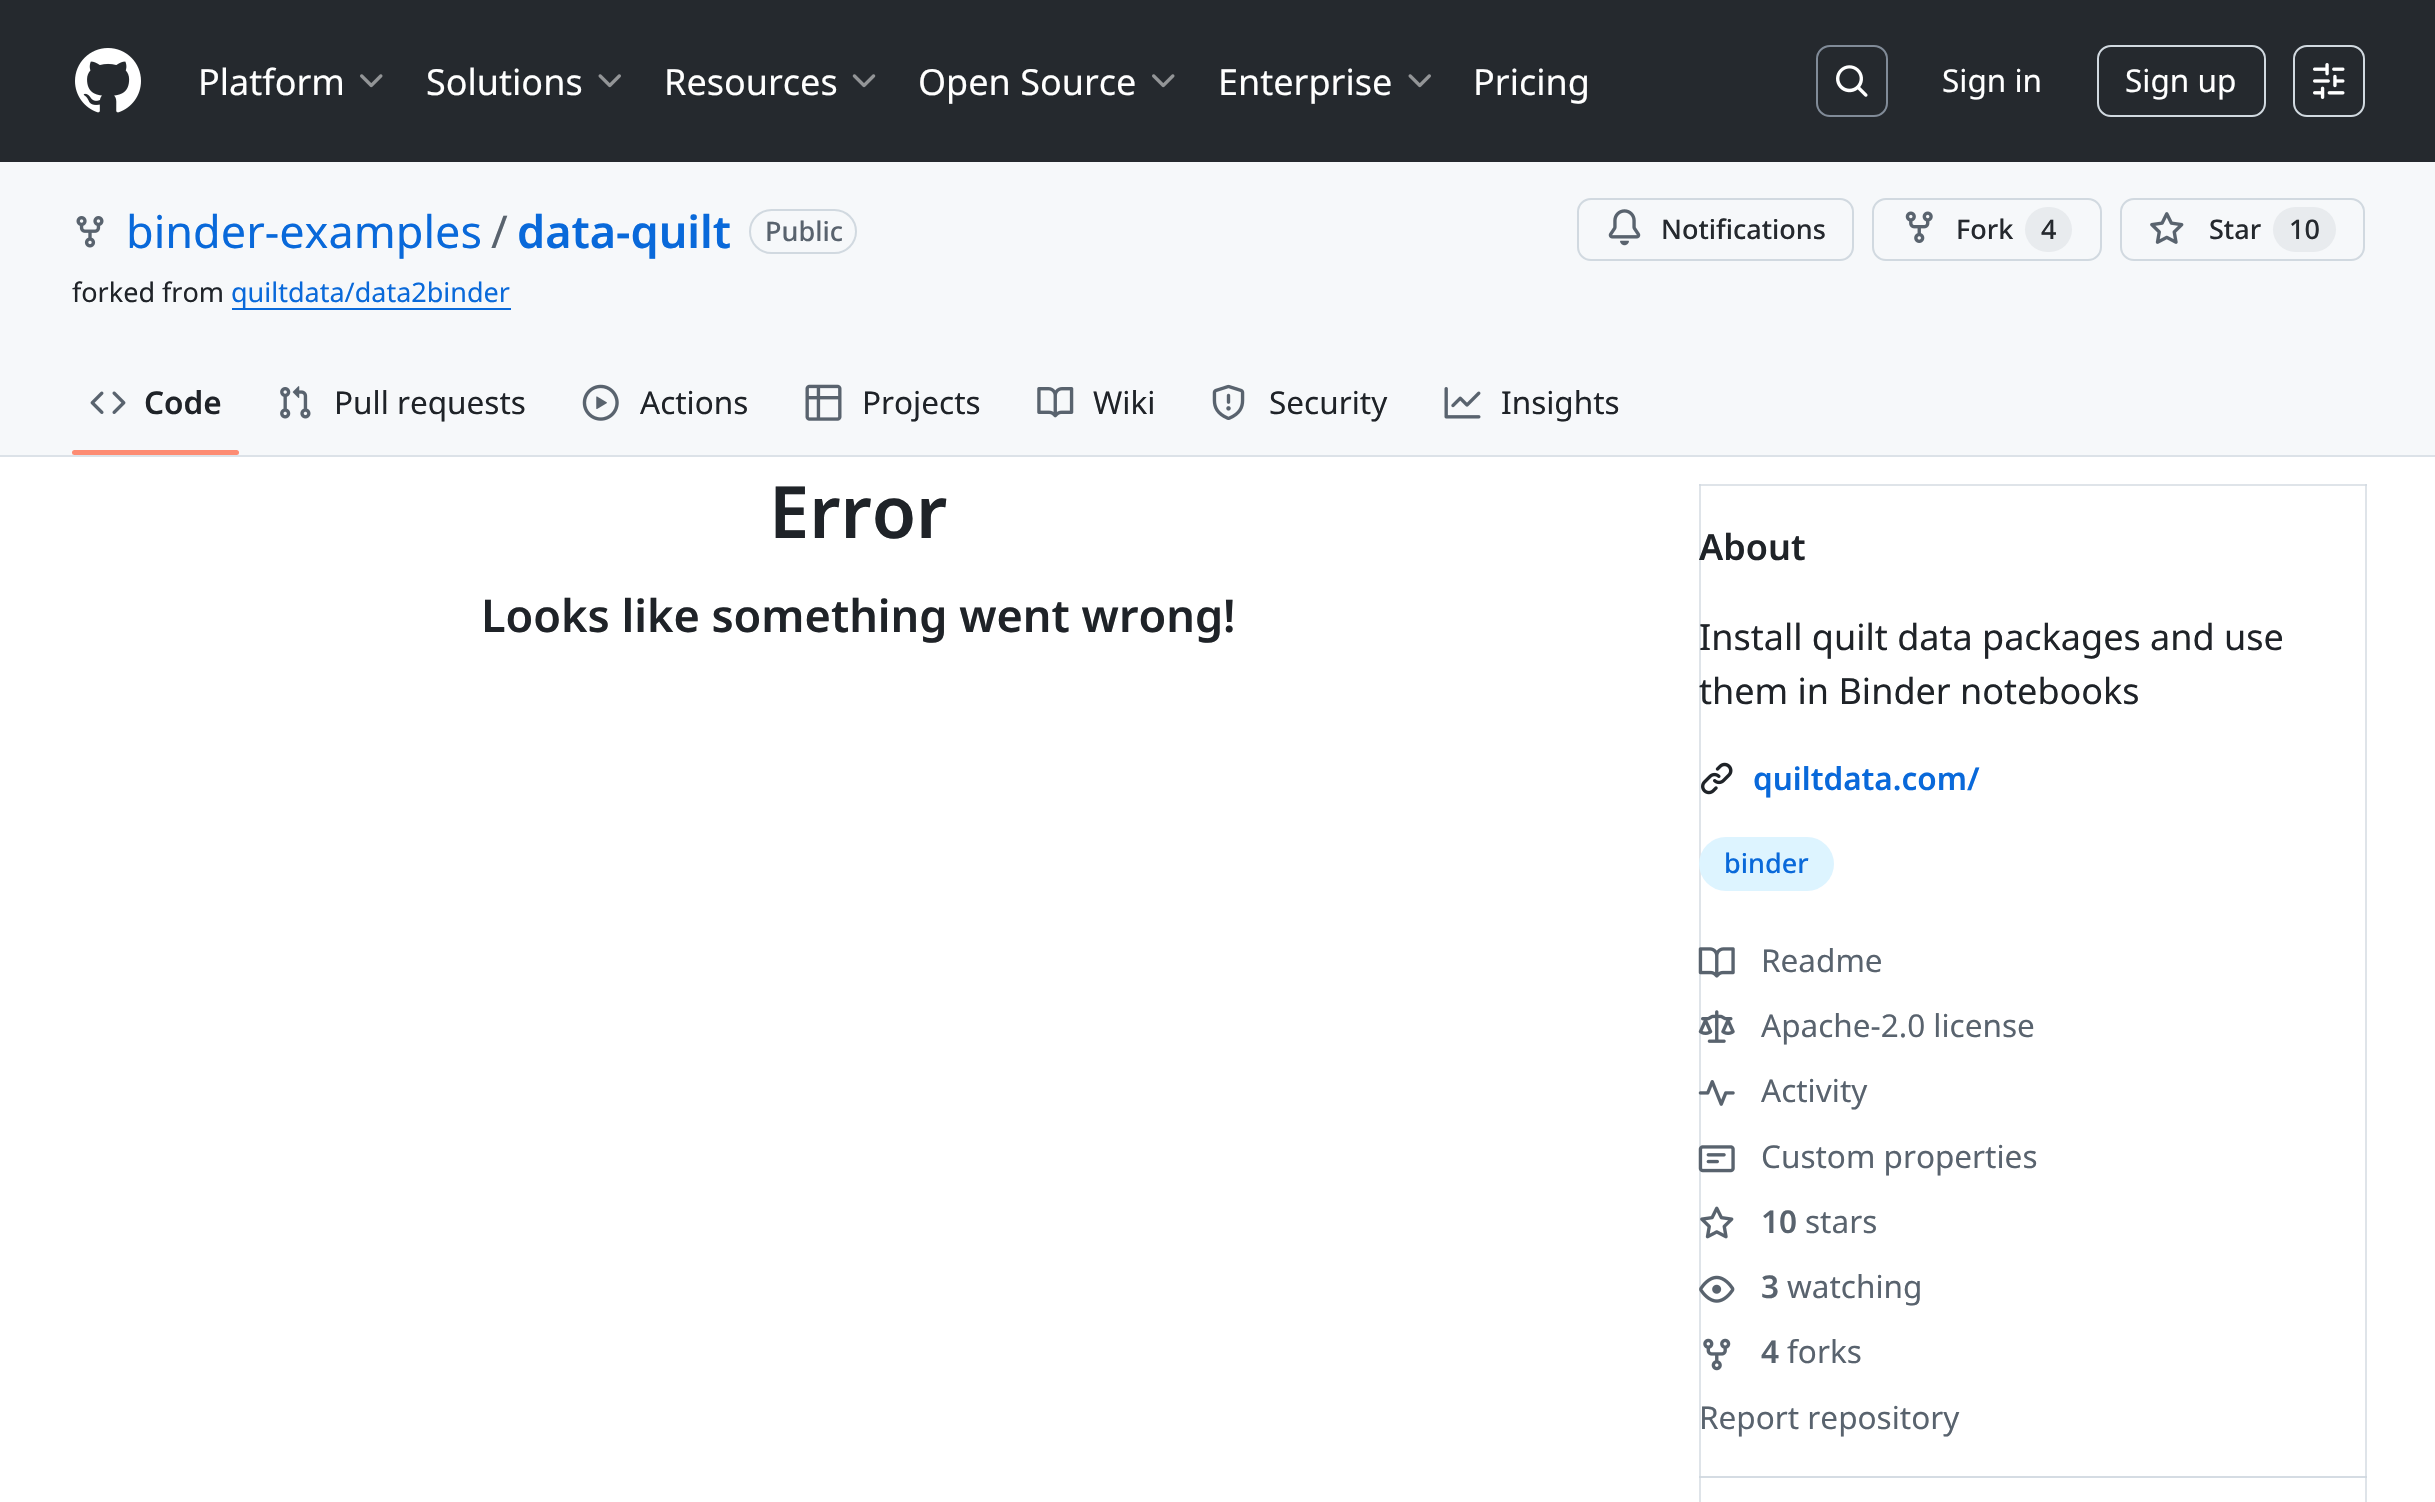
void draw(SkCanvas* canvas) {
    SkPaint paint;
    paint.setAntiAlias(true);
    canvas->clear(0xFFFFFFFF);
    paint.setColor(0xFFDFE4E9);
    canvas->drawRect(SkRect::MakeXYWH(1699, 484, 2, 1018), paint);
    canvas->drawRect(SkRect::MakeXYWH(2365, 484, 2, 1018), paint);
    paint.setColor(0xFF25292E);
    canvas->drawRect(SkRect::MakeXYWH(0, 0, 2435, 162), paint);
    canvas->drawImageRect(SkImages::DeferredFromEncodedData(SkData::MakeFromFileName("img1.png")), SkRect::MakeXYWH(75, 48, 66, 65), SkSamplingOptions());
    SkFont font1(fontMgr->matchFamilyStyle("Noto Sans", SkFontStyle::Normal()), 36);
    font1.setSubpixel(true);
    paint.setColor(0xFFFFFFFF);
    canvas->drawString("Platform", 198, 95, font1, paint);
    canvas->drawImageRect(SkImages::DeferredFromEncodedData(SkData::MakeFromFileName("img2.png")), SkRect::MakeXYWH(360, 74, 23, 14), SkSamplingOptions());
    canvas->drawString("Solutions", 426, 95, font1, paint);
    canvas->drawImageRect(SkImages::DeferredFromEncodedData(SkData::MakeFromFileName("img3.png")), SkRect::MakeXYWH(598, 74, 23, 14), SkSamplingOptions());
    canvas->drawString("Resources", 664, 95, font1, paint);
    canvas->drawImageRect(SkImages::DeferredFromEncodedData(SkData::MakeFromFileName("img4.png")), SkRect::MakeXYWH(852, 74, 24, 14), SkSamplingOptions());
    canvas->drawString("Open Source", 918, 95, font1, paint);
    canvas->drawImageRect(SkImages::DeferredFromEncodedData(SkData::MakeFromFileName("img2.png")), SkRect::MakeXYWH(1152, 74, 23, 14), SkSamplingOptions());
    canvas->drawString("Enterprise", 1218, 95, font1, paint);
    canvas->drawImageRect(SkImages::DeferredFromEncodedData(SkData::MakeFromFileName("img3.png")), SkRect::MakeXYWH(1408, 74, 23, 14), SkSamplingOptions());
    canvas->drawString("Pricing", 1473, 95, font1, paint);
    paint.setStyle(SkPaint::kStroke_Style);
    paint.setStrokeWidth(2);
    paint.setColor(0xFF818B98);
    canvas->drawRoundRect(SkRect::MakeXYWH(1817, 46, 70, 70), 13, 13, paint);
    canvas->drawImageRect(SkImages::DeferredFromEncodedData(SkData::MakeFromFileName("img5.png")), SkRect::MakeXYWH(1836, 65, 32, 32), SkSamplingOptions());
    SkFont font2(fontMgr->matchFamilyStyle("Noto Sans", SkFontStyle::Normal()), 31.5f);
    font2.setSubpixel(true);
    paint.setStyle(SkPaint::kFill_Style);
    paint.setColor(0xFFFFFFFF);
    canvas->drawString("Sign in", 1942, 92, font2, paint);
    paint.setStyle(SkPaint::kStroke_Style);
    paint.setColor(0xFFD1D9E0);
    canvas->drawRoundRect(SkRect::MakeXYWH(2098, 46, 167, 70), 13, 13, paint);
    paint.setStyle(SkPaint::kFill_Style);
    paint.setColor(0xFFFFFFFF);
    canvas->drawString("Sign up", 2125, 92, font2, paint);
    paint.setStyle(SkPaint::kStroke_Style);
    paint.setColor(0xFFD1D9E0);
    canvas->drawRoundRect(SkRect::MakeXYWH(2294, 46, 70, 70), 13, 13, paint);
    canvas->drawImageRect(SkImages::DeferredFromEncodedData(SkData::MakeFromFileName("img6.png")), SkRect::MakeXYWH(2313, 63, 32, 36), SkSamplingOptions());
    paint.setStyle(SkPaint::kFill_Style);
    paint.setColor(0xFFF6F8FA);
    canvas->drawRect(SkRect::MakeXYWH(0, 162, 2435, 293), paint);
    canvas->drawImageRect(SkImages::DeferredFromEncodedData(SkData::MakeFromFileName("img7.png")), SkRect::MakeXYWH(76, 216, 28, 32), SkSamplingOptions());
    SkFont font3(fontMgr->matchFamilyStyle("Noto Sans", SkFontStyle::Normal()), 45);
    font3.setSubpixel(true);
    paint.setColor(0xFF0969DA);
    canvas->drawString("binder-examples", 126, 248, font3, paint);
    paint.setColor(0xFF59636E);
    canvas->drawString("/", 491, 248, font3, paint);
    SkFont font4(fontMgr->matchFamilyStyle("Noto Sans", SkFontStyle(600, SkFontStyle::kNormal_Width, SkFontStyle::kUpright_Slant)), 45);
    font4.setSubpixel(true);
    paint.setColor(0xFF0969DA);
    canvas->drawString("data-quilt", 517, 248, font4, paint);
    paint.setStyle(SkPaint::kStroke_Style);
    paint.setColor(0xFFD1D9E0);
    canvas->drawRoundRect(SkRect::MakeXYWH(750, 210, 106, 43), 21.5f, 21.5f, paint);
    SkFont font5(fontMgr->matchFamilyStyle("Noto Sans", SkFontStyle(500, SkFontStyle::kNormal_Width, SkFontStyle::kUpright_Slant)), 27);
    font5.setSubpixel(true);
    paint.setStyle(SkPaint::kFill_Style);
    paint.setColor(0xFF59636E);
    canvas->drawString("Public", 765, 241, font5, paint);
    SkFont font6(fontMgr->matchFamilyStyle("Noto Sans", SkFontStyle::Normal()), 27);
    font6.setSubpixel(true);
    paint.setColor(0xFF1F2328);
    canvas->drawString("forked from", 72, 302, font6, paint);
    paint.setColor(0xFF0969DA);
    canvas->drawRect(SkRect::MakeXYWH(232, 308, 279, 2), paint);
    canvas->drawString("quiltdata/data2binder", 231, 302, font6, paint);
    paint.setStyle(SkPaint::kStroke_Style);
    paint.setColor(0xFFD1D9E0);
    canvas->drawRoundRect(SkRect::MakeXYWH(1578, 199, 275, 61), 13, 13, paint);
    canvas->drawImageRect(SkImages::DeferredFromEncodedData(SkData::MakeFromFileName("img8.png")), SkRect::MakeXYWH(1608, 209, 33, 37), SkSamplingOptions());
    paint.setStyle(SkPaint::kFill_Style);
    paint.setColor(0xFF25292E);
    canvas->drawString("Notifications", 1661, 239, font5, paint);
    paint.setStyle(SkPaint::kStroke_Style);
    paint.setColor(0xFFD1D9E0);
    canvas->drawRoundRect(SkRect::MakeXYWH(1873, 199, 228, 61), 13, 13, paint);
    canvas->drawImageRect(SkImages::DeferredFromEncodedData(SkData::MakeFromFileName("img9.png")), SkRect::MakeXYWH(1905, 211, 28, 32), SkSamplingOptions());
    paint.setStyle(SkPaint::kFill_Style);
    paint.setColor(0xFF25292E);
    canvas->drawString("Fork", 1956, 239, font5, paint);
    paint.setColor(0xFFE8EBEE);
    canvas->drawRoundRect(SkRect::MakeXYWH(2025, 207, 47, 45), 22.5f, 22.5f, paint);
    paint.setColor(0xFF25292E);
    canvas->drawString("4", 2041, 239, font5, paint);
    paint.setStyle(SkPaint::kStroke_Style);
    paint.setColor(0xFFD1D9E0);
    canvas->drawRoundRect(SkRect::MakeXYWH(2121, 199, 243, 61), 13, 13, paint);
    canvas->drawImageRect(SkImages::DeferredFromEncodedData(SkData::MakeFromFileName("img10.png")), SkRect::MakeXYWH(2150, 212, 34, 32), SkSamplingOptions());
    paint.setStyle(SkPaint::kFill_Style);
    paint.setColor(0xFF25292E);
    canvas->drawString("Star", 2209, 239, font5, paint);
    paint.setColor(0xFFE8EBEE);
    canvas->drawRoundRect(SkRect::MakeXYWH(2273, 207, 63, 45), 22.5f, 22.5f, paint);
    paint.setColor(0xFF25292E);
    canvas->drawString("10", 2289, 239, font5, paint);
    paint.setColor(0xFFDCE2E8);
    canvas->drawRect(SkRect::MakeXYWH(0, 455, 2435, 2), paint);
    canvas->drawImageRect(SkImages::DeferredFromEncodedData(SkData::MakeFromFileName("img11.png")), SkRect::MakeXYWH(90, 391, 36, 23), SkSamplingOptions());
    SkFont font7(fontMgr->matchFamilyStyle("Noto Sans", SkFontStyle(600, SkFontStyle::kNormal_Width, SkFontStyle::kUpright_Slant)), 31.5f);
    font7.setSubpixel(true);
    paint.setColor(0xFF1F2328);
    canvas->drawString("Code", 144, 414, font7, paint);
    paint.setColor(0xFFFD8C73);
    canvas->drawRoundRect(SkRect::MakeXYWH(72, 450, 167, 5), 2.5f, 2.5f, paint);
    canvas->drawImageRect(SkImages::DeferredFromEncodedData(SkData::MakeFromFileName("img12.png")), SkRect::MakeXYWH(280, 386, 31, 33), SkSamplingOptions());
    paint.setColor(0xFF1F2328);
    canvas->drawString("Pull requests", 334, 414, font2, paint);
    canvas->drawImageRect(SkImages::DeferredFromEncodedData(SkData::MakeFromFileName("img13.png")), SkRect::MakeXYWH(582, 384, 37, 37), SkSamplingOptions());
    canvas->drawString("Actions", 640, 414, font2, paint);
    canvas->drawImageRect(SkImages::DeferredFromEncodedData(SkData::MakeFromFileName("img14.png")), SkRect::MakeXYWH(805, 384, 37, 37), SkSamplingOptions());
    canvas->drawString("Projects", 862, 414, font2, paint);
    canvas->drawImageRect(SkImages::DeferredFromEncodedData(SkData::MakeFromFileName("img15.png")), SkRect::MakeXYWH(1037, 387, 37, 31), SkSamplingOptions());
    canvas->drawString("Wiki", 1093, 414, font2, paint);
    canvas->drawImageRect(SkImages::DeferredFromEncodedData(SkData::MakeFromFileName("img16.png")), SkRect::MakeXYWH(1212, 384, 33, 36), SkSamplingOptions());
    canvas->drawString("Security", 1269, 414, font2, paint);
    canvas->drawImageRect(SkImages::DeferredFromEncodedData(SkData::MakeFromFileName("img17.png")), SkRect::MakeXYWH(1444, 387, 37, 32), SkSamplingOptions());
    canvas->drawString("Insights", 1501, 414, font2, paint);
    SkFont font8(fontMgr->matchFamilyStyle("Noto Sans", SkFontStyle(600, SkFontStyle::kNormal_Width, SkFontStyle::kUpright_Slant)), 72);
    font8.setSubpixel(true);
    canvas->drawString("Error", 769, 538, font8, paint);
    canvas->drawString("Looks like something went wrong!", 481, 632, font4, paint);
    paint.setColor(0xFFDFE4E9);
    canvas->drawRect(SkRect::MakeXYWH(1699, 484, 668, 2), paint);
    paint.setColor(0xFFD5DCE3);
    canvas->drawRect(SkRect::MakeXYWH(1699, 484, 2, 2), paint);
    canvas->drawRect(SkRect::MakeXYWH(2365, 484, 2, 2), paint);
    SkFont font9(fontMgr->matchFamilyStyle("Noto Sans", SkFontStyle(600, SkFontStyle::kNormal_Width, SkFontStyle::kUpright_Slant)), 36);
    font9.setSubpixel(true);
    paint.setColor(0xFF1F2328);
    canvas->drawString("About", 1699, 560, font9, paint);
    canvas->drawString("Install quilt data packages and use", 1699, 650, font1, paint);
    canvas->drawString("them in Binder notebooks", 1699, 704, font1, paint);
    canvas->drawImageRect(SkImages::DeferredFromEncodedData(SkData::MakeFromFileName("img18.png")), SkRect::MakeXYWH(1701, 762, 32, 33), SkSamplingOptions());
    paint.setColor(0xFF0969DA);
    canvas->drawString("quiltdata.com/", 1753, 790, font7, paint);
    paint.setColor(0xFFDDF4FF);
    canvas->drawRoundRect(SkRect::MakeXYWH(1699, 837, 135, 54), 27, 27, paint);
    paint.setColor(0xFF0969DA);
    canvas->drawString("binder", 1724, 873, font5, paint);
    canvas->drawImageRect(SkImages::DeferredFromEncodedData(SkData::MakeFromFileName("img19.png")), SkRect::MakeXYWH(1698, 947, 37, 31), SkSamplingOptions());
    paint.setColor(0xFF59636E);
    canvas->drawString("Readme", 1761, 972, font2, paint);
    canvas->drawImageRect(SkImages::DeferredFromEncodedData(SkData::MakeFromFileName("img20.png")), SkRect::MakeXYWH(1698, 1010, 37, 33), SkSamplingOptions());
    canvas->drawString("Apache-2.0 license", 1761, 1037, font2, paint);
    canvas->drawImageRect(SkImages::DeferredFromEncodedData(SkData::MakeFromFileName("img21.png")), SkRect::MakeXYWH(1698, 1080, 37, 26), SkSamplingOptions());
    canvas->drawString("Activity", 1761, 1102, font2, paint);
    canvas->drawImageRect(SkImages::DeferredFromEncodedData(SkData::MakeFromFileName("img22.png")), SkRect::MakeXYWH(1698, 1145, 37, 28), SkSamplingOptions());
    canvas->drawString("Custom properties", 1761, 1168, font2, paint);
    canvas->drawImageRect(SkImages::DeferredFromEncodedData(SkData::MakeFromFileName("img23.png")), SkRect::MakeXYWH(1700, 1206, 34, 33), SkSamplingOptions());
    canvas->drawString("10", 1761, 1233, font7, paint);
    canvas->drawString("stars", 1805, 1233, font2, paint);
    canvas->drawImageRect(SkImages::DeferredFromEncodedData(SkData::MakeFromFileName("img24.png")), SkRect::MakeXYWH(1699, 1275, 36, 28), SkSamplingOptions());
    canvas->drawString("3", 1761, 1298, font7, paint);
    canvas->drawString("watching", 1787, 1298, font2, paint);
    canvas->drawImageRect(SkImages::DeferredFromEncodedData(SkData::MakeFromFileName("img25.png")), SkRect::MakeXYWH(1703, 1338, 28, 33), SkSamplingOptions());
    canvas->drawString("4", 1761, 1363, font7, paint);
    canvas->drawString("forks", 1787, 1363, font2, paint);
    canvas->drawString("Report repository", 1699, 1429, font2, paint);
    paint.setColor(0xFFD5DCE3);
    canvas->drawRect(SkRect::MakeXYWH(1699, 1476, 668, 2), paint);
    paint.setColor(0xFFD1D9E0);
    canvas->drawRect(SkRect::MakeXYWH(1699, 1476, 2, 2), paint);
    canvas->drawRect(SkRect::MakeXYWH(2365, 1476, 2, 2), paint);
}
